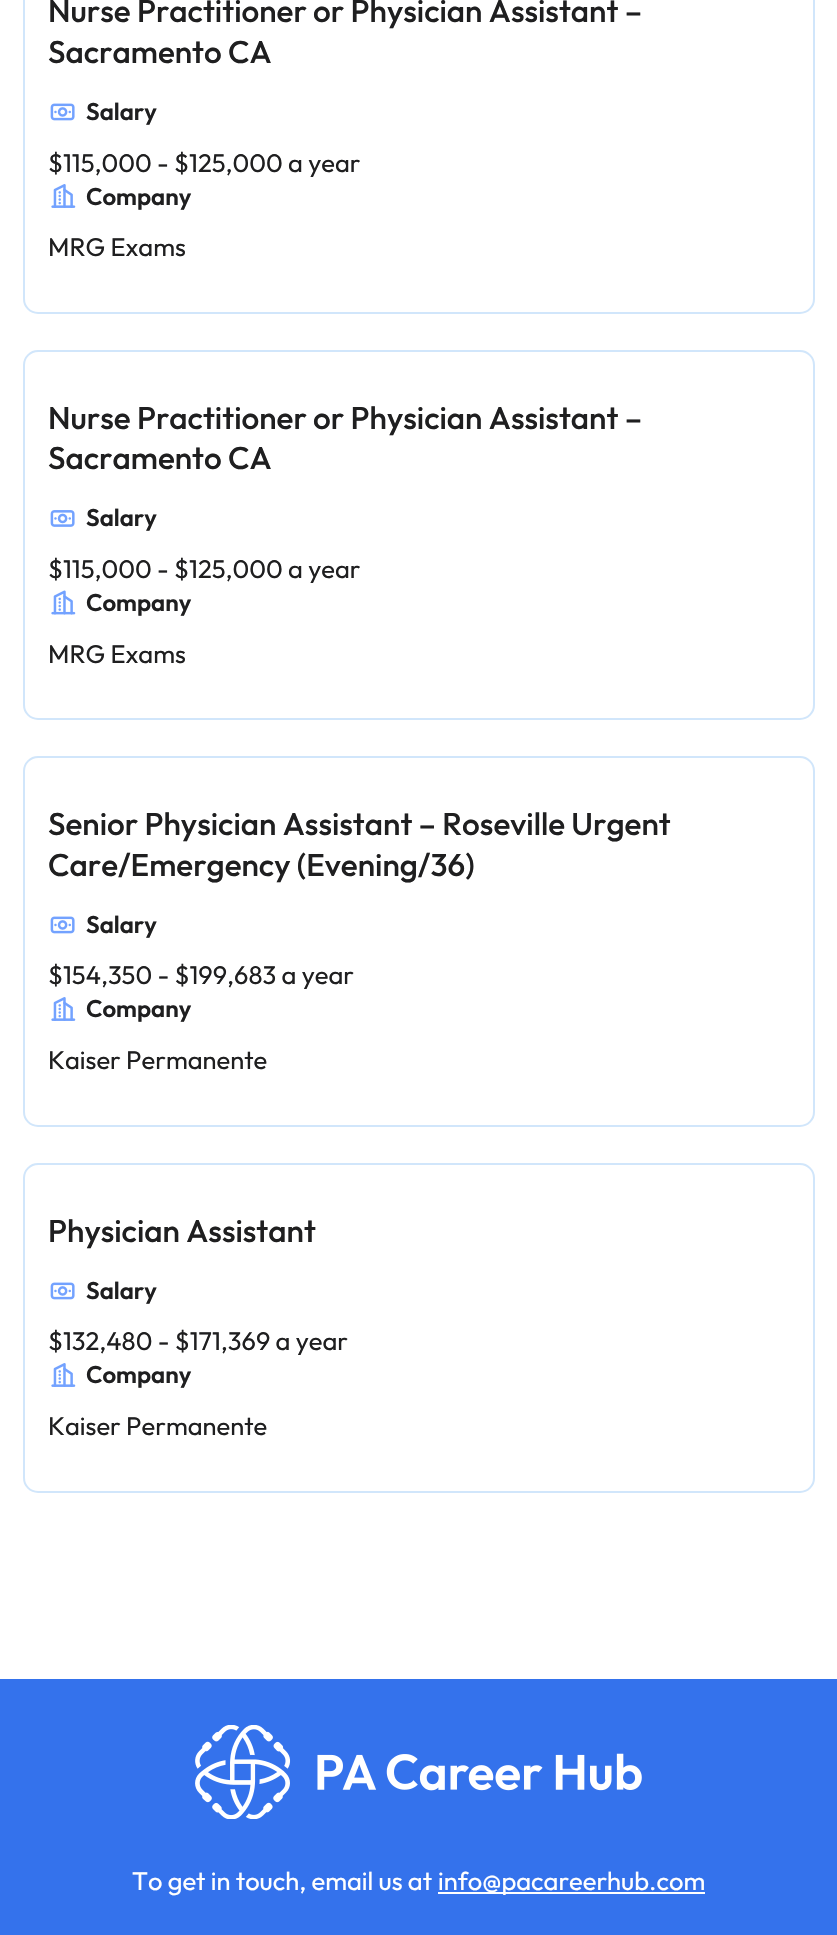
void draw(SkCanvas* canvas) {
    SkPaint paint;
    paint.setAntiAlias(true);
    canvas->clear(0xFFFFFFFF);
    paint.setStyle(SkPaint::kStroke_Style);
    paint.setStrokeWidth(2);
    paint.setColor(0xFFD1E6FB);
    canvas->drawRoundRect(SkRect::MakeXYWH(24, -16, 790, 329), 14, 14, paint);
    SkFont font1(fontMgr->matchFamilyStyle("Outfit", SkFontStyle(500, SkFontStyle::kNormal_Width, SkFontStyle::kUpright_Slant)), 31.5f);
    font1.setSubpixel(true);
    paint.setStyle(SkPaint::kFill_Style);
    paint.setColor(0xFF1F1F20);
    canvas->drawString("Nurse Practitioner or Physician Assistant –", 48, 22, font1, paint);
    canvas->drawString("Sacramento CA", 48, 63, font1, paint);
    canvas->drawImageRect(SkImages::DeferredFromEncodedData(SkData::MakeFromFileName("img1.png")), SkRect::MakeXYWH(50, 103, 25, 18), SkSamplingOptions());
    SkFont font2(fontMgr->matchFamilyStyle("Outfit", SkFontStyle(600, SkFontStyle::kNormal_Width, SkFontStyle::kUpright_Slant)), 24);
    font2.setSubpixel(true);
    canvas->drawString("Salary", 86, 120, font2, paint);
    SkFont font3(fontMgr->matchFamilyStyle("Outfit", SkFontStyle::Normal()), 25.5f);
    font3.setSubpixel(true);
    canvas->drawString("$115,000 - $125,000 a year", 48, 172, font3, paint);
    canvas->drawImageRect(SkImages::DeferredFromEncodedData(SkData::MakeFromFileName("img2.png")), SkRect::MakeXYWH(51, 184, 25, 24), SkSamplingOptions());
    canvas->drawString("Company", 86, 205, font2, paint);
    canvas->drawString("MRG Exams", 48, 256, font3, paint);
    paint.setStyle(SkPaint::kStroke_Style);
    paint.setColor(0xFFD1E6FB);
    canvas->drawRoundRect(SkRect::MakeXYWH(24, 351, 790, 368), 14, 14, paint);
    paint.setStyle(SkPaint::kFill_Style);
    paint.setColor(0xFF1F1F20);
    canvas->drawString("Nurse Practitioner or Physician Assistant –", 48, 429, font1, paint);
    canvas->drawString("Sacramento CA", 48, 469, font1, paint);
    canvas->drawImageRect(SkImages::DeferredFromEncodedData(SkData::MakeFromFileName("img3.png")), SkRect::MakeXYWH(50, 510, 25, 17), SkSamplingOptions());
    canvas->drawString("Salary", 86, 526, font2, paint);
    canvas->drawString("$115,000 - $125,000 a year", 48, 578, font3, paint);
    canvas->drawImageRect(SkImages::DeferredFromEncodedData(SkData::MakeFromFileName("img4.png")), SkRect::MakeXYWH(51, 590, 25, 25), SkSamplingOptions());
    canvas->drawString("Company", 86, 611, font2, paint);
    canvas->drawString("MRG Exams", 48, 663, font3, paint);
    paint.setStyle(SkPaint::kStroke_Style);
    paint.setColor(0xFFD1E6FB);
    canvas->drawRoundRect(SkRect::MakeXYWH(24, 757, 790, 369), 14, 14, paint);
    paint.setStyle(SkPaint::kFill_Style);
    paint.setColor(0xFF1F1F20);
    canvas->drawString("Senior Physician Assistant – Roseville Urgent", 48, 835, font1, paint);
    canvas->drawString("Care/Emergency (Evening/36)", 48, 876, font1, paint);
    canvas->drawImageRect(SkImages::DeferredFromEncodedData(SkData::MakeFromFileName("img1.png")), SkRect::MakeXYWH(50, 916, 25, 18), SkSamplingOptions());
    canvas->drawString("Salary", 86, 933, font2, paint);
    canvas->drawString("$154,350 - $199,683 a year", 48, 984, font3, paint);
    canvas->drawImageRect(SkImages::DeferredFromEncodedData(SkData::MakeFromFileName("img2.png")), SkRect::MakeXYWH(51, 997, 25, 24), SkSamplingOptions());
    canvas->drawString("Company", 86, 1017, font2, paint);
    canvas->drawString("Kaiser Permanente", 48, 1069, font3, paint);
    paint.setStyle(SkPaint::kStroke_Style);
    paint.setColor(0xFFD1E6FB);
    canvas->drawRoundRect(SkRect::MakeXYWH(24, 1164, 790, 328), 14, 14, paint);
    paint.setStyle(SkPaint::kFill_Style);
    paint.setColor(0xFF1F1F20);
    canvas->drawString("Physician Assistant", 48, 1242, font1, paint);
    canvas->drawImageRect(SkImages::DeferredFromEncodedData(SkData::MakeFromFileName("img1.png")), SkRect::MakeXYWH(50, 1282, 25, 18), SkSamplingOptions());
    canvas->drawString("Salary", 86, 1299, font2, paint);
    canvas->drawString("$132,480 - $171,369 a year", 48, 1350, font3, paint);
    canvas->drawImageRect(SkImages::DeferredFromEncodedData(SkData::MakeFromFileName("img2.png")), SkRect::MakeXYWH(51, 1363, 25, 24), SkSamplingOptions());
    canvas->drawString("Company", 86, 1383, font2, paint);
    canvas->drawString("Kaiser Permanente", 48, 1435, font3, paint);
    paint.setColor(0xFF3472EC);
    canvas->drawRect(SkRect::MakeXYWH(0, 1679, 837, 256), paint);
    canvas->drawImageRect(SkImages::DeferredFromEncodedData(SkData::MakeFromFileName("img5.png")), SkRect::MakeXYWH(195, 1725, 447, 94), SkSamplingOptions());
    paint.setColor(0xFFFFFFFF);
    canvas->drawString("To get in touch, email us at", 132, 1890, font3, paint);
    canvas->drawRect(SkRect::MakeXYWH(438, 1892, 267, 2), paint);
    canvas->drawString("info@pacareerhub.com", 438, 1890, font3, paint);
}
